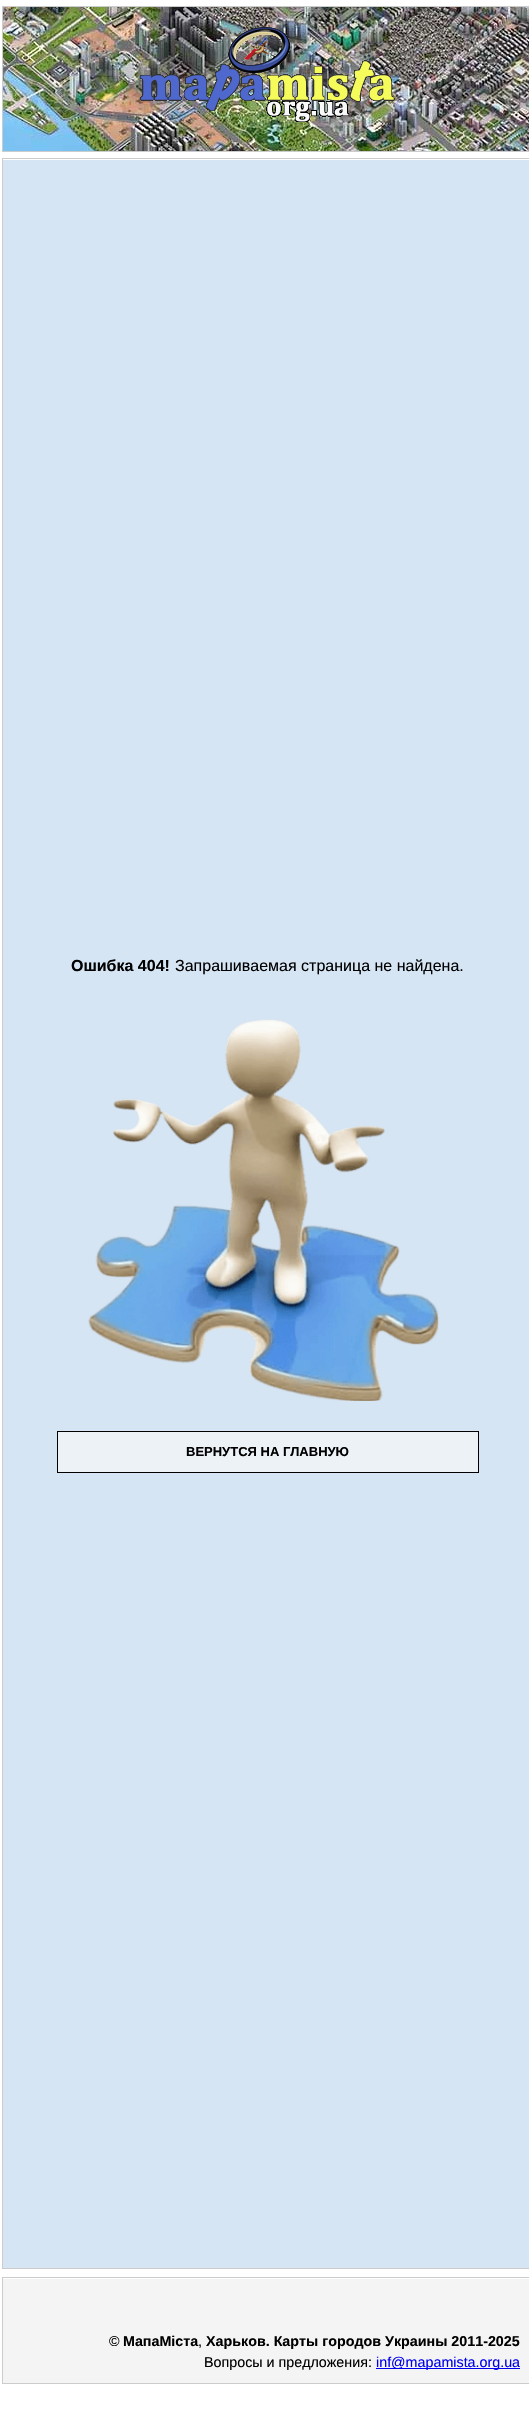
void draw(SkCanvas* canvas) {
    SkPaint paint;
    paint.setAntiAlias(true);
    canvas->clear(0xFFFFFFFF);
    canvas->drawImageRect(SkImages::DeferredFromEncodedData(SkData::MakeFromFileName("img1.png")), SkRect::MakeXYWH(3, 7, 526, 144), SkSamplingOptions());
    paint.setStyle(SkPaint::kStroke_Style);
    paint.setStrokeWidth(1);
    paint.setColor(0xFFCCCCCC);
    canvas->drawRect(SkRect::MakeXYWH(2.5f, 6.5f, 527, 145), paint);
    canvas->drawImageRect(SkImages::DeferredFromEncodedData(SkData::MakeFromFileName("img2.png")), SkRect::MakeXYWH(140, 27, 255, 95), SkSamplingOptions());
    paint.setStyle(SkPaint::kFill_Style);
    paint.setColor(0xFFD6E5F4);
    canvas->drawRect(SkRect::MakeXYWH(3, 160, 526, 2108), paint);
    paint.setStyle(SkPaint::kStroke_Style);
    paint.setColor(0xFFCCCCCC);
    canvas->drawRect(SkRect::MakeXYWH(2.5f, 158.5f, 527, 2110), paint);
    SkFont font1(fontMgr->matchFamilyStyle("Liberation Sans", SkFontStyle::Bold()), 16);
    font1.setSubpixel(true);
    paint.setStyle(SkPaint::kFill_Style);
    paint.setColor(0xFF000000);
    canvas->drawString("Ошибка 404!", 71, 971, font1, paint);
    SkFont font2(fontMgr->matchFamilyStyle("Liberation Sans", SkFontStyle::Normal()), 16);
    font2.setSubpixel(true);
    canvas->drawString("Запрашиваемая страница не найдена.", 175, 971, font2, paint);
    canvas->drawImageRect(SkImages::DeferredFromEncodedData(SkData::MakeFromFileName("img3.png")), SkRect::MakeXYWH(88, 1019, 351, 382), SkSamplingOptions());
    paint.setColor(0xFFEDF2F7);
    canvas->drawRect(SkRect::MakeXYWH(57.5f, 1431.5f, 421, 41), paint);
    paint.setStyle(SkPaint::kStroke_Style);
    paint.setColor(0xFF000000);
    canvas->drawRect(SkRect::MakeXYWH(57.5f, 1431.5f, 421, 41), paint);
    SkFont font3(fontMgr->matchFamilyStyle("Liberation Sans", SkFontStyle::Bold()), 13);
    font3.setSubpixel(true);
    paint.setStyle(SkPaint::kFill_Style);
    canvas->drawString("ВЕРНУТСЯ НА ГЛАВНУЮ", 186, 1456, font3, paint);
    paint.setColor(0xFFF4F4F4);
    canvas->drawRect(SkRect::MakeXYWH(3, 2279, 526, 104), paint);
    paint.setStyle(SkPaint::kStroke_Style);
    paint.setColor(0xFFCCCCCC);
    canvas->drawRect(SkRect::MakeXYWH(2.5f, 2277.5f, 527, 106), paint);
    SkFont font4(fontMgr->matchFamilyStyle("Liberation Sans", SkFontStyle::Normal()), 14.3f);
    font4.setSubpixel(true);
    paint.setStyle(SkPaint::kFill_Style);
    paint.setColor(0xFF000000);
    canvas->drawString("©", 109, 2346, font4, paint);
    SkFont font5(fontMgr->matchFamilyStyle("Liberation Sans", SkFontStyle::Bold()), 14.3f);
    font5.setSubpixel(true);
    canvas->drawString("МапаМіста", 123, 2346, font5, paint);
    canvas->drawString(",", 198, 2346, font4, paint);
    canvas->drawString("Харьков. Карты городов Украины 2011-2025", 206, 2346, font5, paint);
    canvas->drawString("Вопросы и предложения:", 204, 2367, font4, paint);
    paint.setColor(0xFF0000EE);
    canvas->drawRect(SkRect::MakeXYWH(376, 2368, 144, 1), paint);
    canvas->drawString("inf@mapamista.org.ua", 376, 2367, font4, paint);
}
